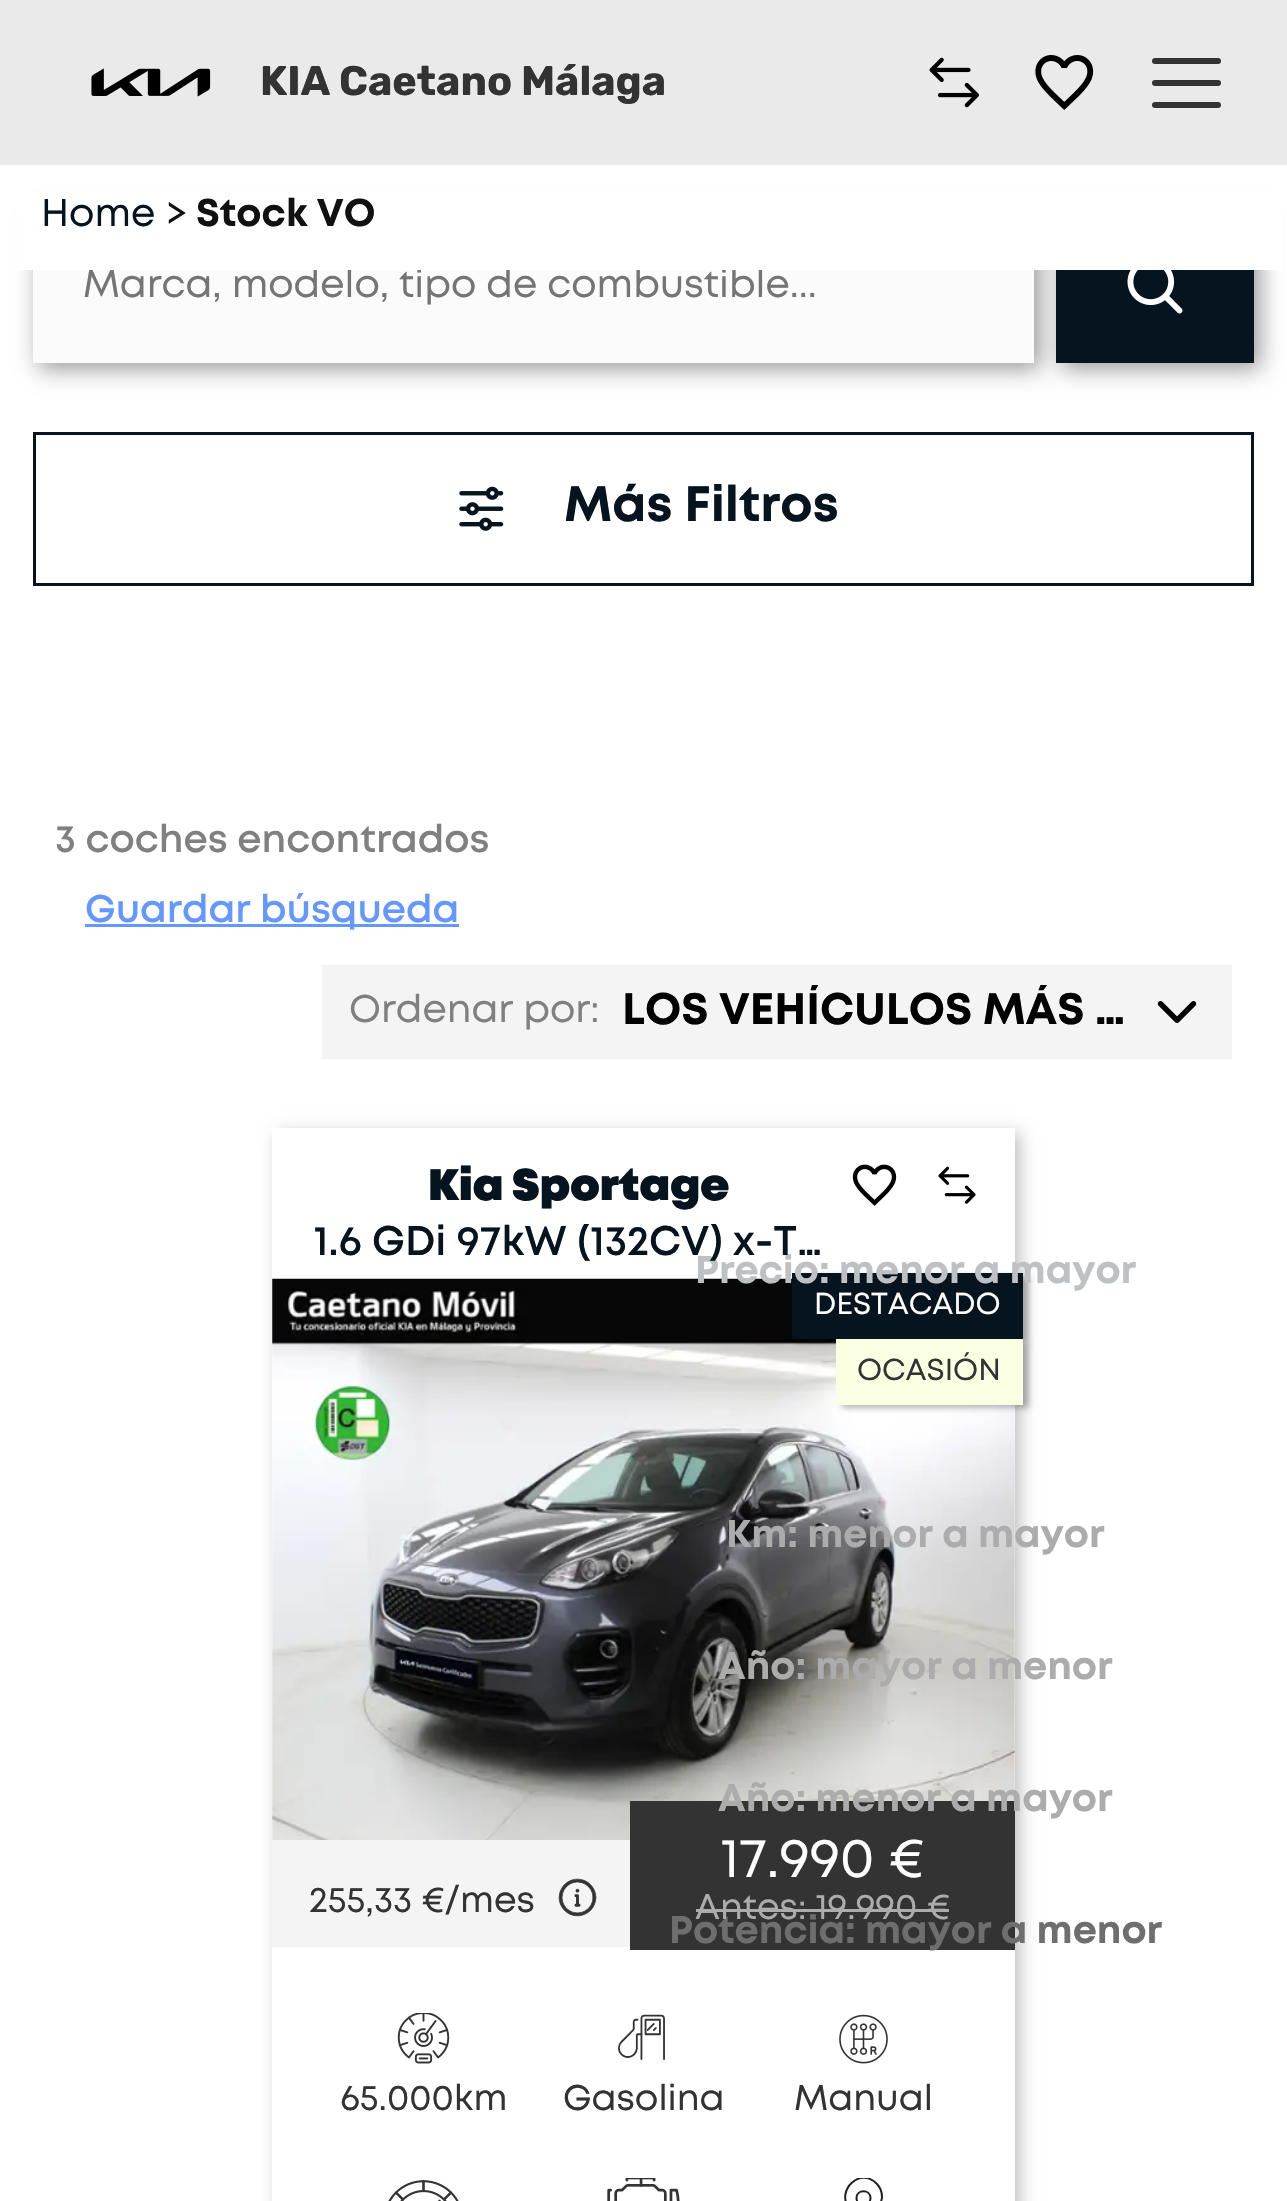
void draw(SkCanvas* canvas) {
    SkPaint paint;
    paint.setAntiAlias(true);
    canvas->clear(0xFFFFFFFF);
    paint.setColor(0xFFEAEAEA);
    canvas->drawRect(SkRect::MakeXYWH(0, 0, 1287, 165), paint);
    canvas->drawImageRect(SkImages::DeferredFromEncodedData(SkData::MakeFromFileName("img1.png")), SkRect::MakeXYWH(91, 68, 120, 29), SkSamplingOptions());
    SkFont font1(fontMgr->matchFamilyStyle("Rubik", SkFontStyle::Bold()), 41.25f);
    font1.setSubpixel(true);
    paint.setColor(0xFF333333);
    canvas->drawString("KIA Caetano Málaga", 260, 95, font1, paint);
    canvas->drawImageRect(SkImages::DeferredFromEncodedData(SkData::MakeFromFileName("img2.png")), SkRect::MakeXYWH(929, 57, 50, 51), SkSamplingOptions());
    canvas->drawImageRect(SkImages::DeferredFromEncodedData(SkData::MakeFromFileName("img3.png")), SkRect::MakeXYWH(1035, 55, 59, 55), SkSamplingOptions());
    canvas->drawRoundRect(SkRect::MakeXYWH(1152, 58, 69, 6), 3, 3, paint);
    canvas->drawRoundRect(SkRect::MakeXYWH(1152, 80, 69, 6), 3, 3, paint);
    canvas->drawRoundRect(SkRect::MakeXYWH(1152, 102, 69, 6), 3, 3, paint);
    paint.setColor(0x66000000);
    paint.setMaskFilter(SkMaskFilter::MakeBlur(kNormal_SkBlurStyle, 11));
    canvas->drawRect(SkRect::MakeXYWH(1062, 215, 198, 154), paint);
    paint.setMaskFilter(nullptr);
    paint.setColor(0xFF05141F);
    canvas->drawRect(SkRect::MakeXYWH(1056, 270, 198, 93), paint);
    paint.setColor(0x66000000);
    paint.setMaskFilter(SkMaskFilter::MakeBlur(kNormal_SkBlurStyle, 11));
    canvas->drawRect(SkRect::MakeXYWH(39, 215, 1001, 154), paint);
    paint.setMaskFilter(nullptr);
    paint.setColor(0xFFFBFBFB);
    canvas->drawRect(SkRect::MakeXYWH(33, 270, 1001, 93), paint);
    SkFont font2(fontMgr->matchFamilyStyle("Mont", SkFontStyle::Normal()), 38.5f);
    font2.setSubpixel(true);
    paint.setColor(0xFF757575);
    canvas->drawString("Marca, modelo, tipo de combustible...", 83, 297, font2, paint);
    paint.setColor(0xFFFFFFFF);
    canvas->drawRect(SkRect::MakeXYWH(17, 193, 1265, 77), paint);
    paint.setColor(0xFF05141F);
    canvas->drawString("Home", 41, 226, font2, paint);
    paint.setColor(0xFF111111);
    canvas->drawString(">", 166, 226, font2, paint);
    SkFont font3(fontMgr->matchFamilyStyle("Mont", SkFontStyle::Bold()), 38.5f);
    font3.setSubpixel(true);
    canvas->drawString("Stock VO", 196, 226, font3, paint);
    canvas->drawImageRect(SkImages::DeferredFromEncodedData(SkData::MakeFromFileName("img4.png")), SkRect::MakeXYWH(1127, 270, 56, 44), SkSamplingOptions());
    paint.setStyle(SkPaint::kStroke_Style);
    paint.setStrokeWidth(3);
    paint.setColor(0xFF05141F);
    canvas->drawRect(SkRect::MakeXYWH(34.5f, 433.5f, 1218, 151), paint);
    canvas->drawImageRect(SkImages::DeferredFromEncodedData(SkData::MakeFromFileName("img5.png")), SkRect::MakeXYWH(459, 486, 45, 45), SkSamplingOptions());
    SkFont font4(fontMgr->matchFamilyStyle("Mont", SkFontStyle::Bold()), 49.5f);
    font4.setSubpixel(true);
    paint.setStyle(SkPaint::kFill_Style);
    canvas->drawString("Más Filtros", 564, 521, font4, paint);
    SkFont font5(fontMgr->matchFamilyStyle("Mont", SkFontStyle(600, SkFontStyle::kNormal_Width, SkFontStyle::kUpright_Slant)), 38.5f);
    font5.setSubpixel(true);
    paint.setColor(0xFF808080);
    canvas->drawString("3 coches encontrados", 55, 852, font5, paint);
    paint.setColor(0xFF6497FF);
    canvas->drawRect(SkRect::MakeXYWH(85, 924, 374, 3), paint);
    canvas->drawString("Guardar búsqueda", 85, 922, font5, paint);
    paint.setColor(0xFFF4F4F4);
    canvas->drawRect(SkRect::MakeXYWH(322, 965, 910, 94), paint);
    paint.setColor(0xFF808080);
    canvas->drawString("Ordenar por:", 349, 1022, font2, paint);
    canvas->save();
    canvas->clipRect(SkRect::MakeXYWH(622, 985, 522, 55));
    SkFont font6(fontMgr->matchFamilyStyle("Mont", SkFontStyle::Bold()), 44);
    font6.setSubpixel(true);
    paint.setColor(0xFF000000);
    canvas->drawString("LOS VEHÍCULOS MÁS …", 622, 1024, font6, paint);
    canvas->restore();
    canvas->drawImageRect(SkImages::DeferredFromEncodedData(SkData::MakeFromFileName("img6.png")), SkRect::MakeXYWH(1157, 1001, 40, 22), SkSamplingOptions());
    paint.setColor(0x40000000);
    paint.setMaskFilter(SkMaskFilter::MakeBlur(kNormal_SkBlurStyle, 8));
    canvas->drawRect(SkRect::MakeXYWH(278, 1133, 742, 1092), paint);
    paint.setMaskFilter(nullptr);
    paint.setColor(0xFFFFFFFF);
    canvas->drawRect(SkRect::MakeXYWH(272, 1128, 743, 1073), paint);
    canvas->drawImageRect(SkImages::DeferredFromEncodedData(SkData::MakeFromFileName("img9.png")), SkRect::MakeXYWH(272, 1278, 743, 562), SkSamplingOptions());
    paint.setColor(0x4A000000);
    paint.setMaskFilter(SkMaskFilter::MakeBlur(kNormal_SkBlurStyle, 3));
    canvas->drawRect(SkRect::MakeXYWH(798, 1276, 231, 66), paint);
    paint.setMaskFilter(nullptr);
    paint.setColor(0xFF05141F);
    canvas->drawRect(SkRect::MakeXYWH(792, 1273, 231, 66), paint);
    paint.setColor(0xFFBEC1C3);
    canvas->drawString("Precio: menor a mayor", 695, 1283, font3, paint);
    paint.setColor(0xFFACACAC);
    canvas->drawString("Km: menor a mayor", 726, 1547, font3, paint);
    canvas->drawString("Año: mayor a menor", 718, 1679, font3, paint);
    paint.setColor(0xFF333333);
    canvas->drawRect(SkRect::MakeXYWH(630, 1801, 385, 149), paint);
    paint.setColor(0xFFACACAC);
    canvas->drawString("Año: menor a mayor", 718, 1811, font3, paint);
    paint.setColor(0xFF6E6E6E);
    canvas->drawString("Potencia: mayor a menor", 669, 1943, font3, paint);
    SkFont font7(fontMgr->matchFamilyStyle("Mont", SkFontStyle(900, SkFontStyle::kNormal_Width, SkFontStyle::kUpright_Slant)), 44);
    font7.setSubpixel(true);
    paint.setColor(0xFF05141F);
    canvas->drawString("Kia Sportage", 428, 1200, font7, paint);
    canvas->save();
    canvas->clipRect(SkRect::MakeXYWH(314, 1224, 530, 38));
    SkFont font8(fontMgr->matchFamilyStyle("Mont", SkFontStyle(600, SkFontStyle::kNormal_Width, SkFontStyle::kUpright_Slant)), 41.25f);
    font8.setSubpixel(true);
    canvas->drawString("1.6 GDi 97kW (132CV) x-T…", 314, 1255, font8, paint);
    canvas->restore();
    canvas->drawImageRect(SkImages::DeferredFromEncodedData(SkData::MakeFromFileName("img7.png")), SkRect::MakeXYWH(852, 1164, 45, 42), SkSamplingOptions());
    canvas->drawImageRect(SkImages::DeferredFromEncodedData(SkData::MakeFromFileName("img8.png")), SkRect::MakeXYWH(938, 1166, 38, 38), SkSamplingOptions());
    SkFont font9(fontMgr->matchFamilyStyle("Mont", SkFontStyle::Normal()), 30.25f);
    font9.setSubpixel(true);
    paint.setColor(0xFFFFFFFF);
    canvas->drawString("DESTACADO", 814, 1314, font9, paint);
    paint.setColor(0x4A000000);
    paint.setMaskFilter(SkMaskFilter::MakeBlur(kNormal_SkBlurStyle, 3));
    canvas->drawRect(SkRect::MakeXYWH(842, 1342, 187, 66), paint);
    paint.setMaskFilter(nullptr);
    paint.setColor(0xFFFBFFE1);
    canvas->drawRect(SkRect::MakeXYWH(836, 1339, 187, 66), paint);
    paint.setColor(0xFF333333);
    canvas->drawString("OCASIÓN", 857, 1380, font9, paint);
    paint.setColor(0xFFF4F4F4);
    canvas->drawRect(SkRect::MakeXYWH(272, 1840, 358, 107), paint);
    SkFont font10(fontMgr->matchFamilyStyle("Mont", SkFontStyle::Normal()), 35.75f);
    font10.setSubpixel(true);
    paint.setColor(0xFF333333);
    canvas->drawString("255,33 €/mes", 309, 1912, font10, paint);
    canvas->drawImageRect(SkImages::DeferredFromEncodedData(SkData::MakeFromFileName("img10.png")), SkRect::MakeXYWH(558, 1878, 39, 39), SkSamplingOptions());
    SkFont font11(fontMgr->matchFamilyStyle("Mont", SkFontStyle::Normal()), 55);
    font11.setSubpixel(true);
    paint.setColor(0xFFFFFFFF);
    canvas->drawString("17.990 €", 721, 1877, font11, paint);
    paint.setColor(0xFFACACAC);
    canvas->drawString("Antes: 19.990 €", 695, 1919, font10, paint);
    canvas->drawRect(SkRect::MakeXYWH(696, 1909, 253, 3), paint);
    canvas->drawImageRect(SkImages::DeferredFromEncodedData(SkData::MakeFromFileName("img11.png")), SkRect::MakeXYWH(397, 2013, 53, 51), SkSamplingOptions());
    paint.setColor(0xFF333333);
    canvas->drawString("65.000km", 340, 2110, font10, paint);
    canvas->drawImageRect(SkImages::DeferredFromEncodedData(SkData::MakeFromFileName("img12.png")), SkRect::MakeXYWH(618, 2014, 47, 46), SkSamplingOptions());
    canvas->drawString("Gasolina", 563, 2110, font10, paint);
    canvas->drawImageRect(SkImages::DeferredFromEncodedData(SkData::MakeFromFileName("img13.png")), SkRect::MakeXYWH(839, 2014, 49, 50), SkSamplingOptions());
    canvas->drawString("Manual", 794, 2110, font10, paint);
    canvas->drawImageRect(SkImages::DeferredFromEncodedData(SkData::MakeFromFileName("img14.png")), SkRect::MakeXYWH(388, 2180, 71, 21), SkSamplingOptions());
    canvas->drawImageRect(SkImages::DeferredFromEncodedData(SkData::MakeFromFileName("img15.png")), SkRect::MakeXYWH(607, 2178, 73, 23), SkSamplingOptions());
    canvas->save();
    canvas->clipRect(SkRect::MakeXYWH(822, 2178, 83, 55));
    paint.setStyle(SkPaint::kStroke_Style);
    paint.setStrokeWidth(2);
    paint.setColor(0xFF231F20);
    canvas->drawPath(SkPathBuilder().moveTo(882, 2197).cubicTo(882, 2192, 880, 2187, 876.5f, 2183.5f).cubicTo(860, 2167, 836.5f, 2190, 848.5f, 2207.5f).lineTo(863, 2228.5f).cubicTo(868, 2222, 882, 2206, 882, 2197).close().detach(), paint);
    canvas->restore();
    canvas->drawPath(SkPathBuilder().moveTo(870.5f, 2198).cubicTo(870.5f, 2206.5f, 856.5f, 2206.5f, 856.5f, 2198).cubicTo(856.5f, 2189, 870.5f, 2189, 870.5f, 2198).close().detach(), paint);
}
